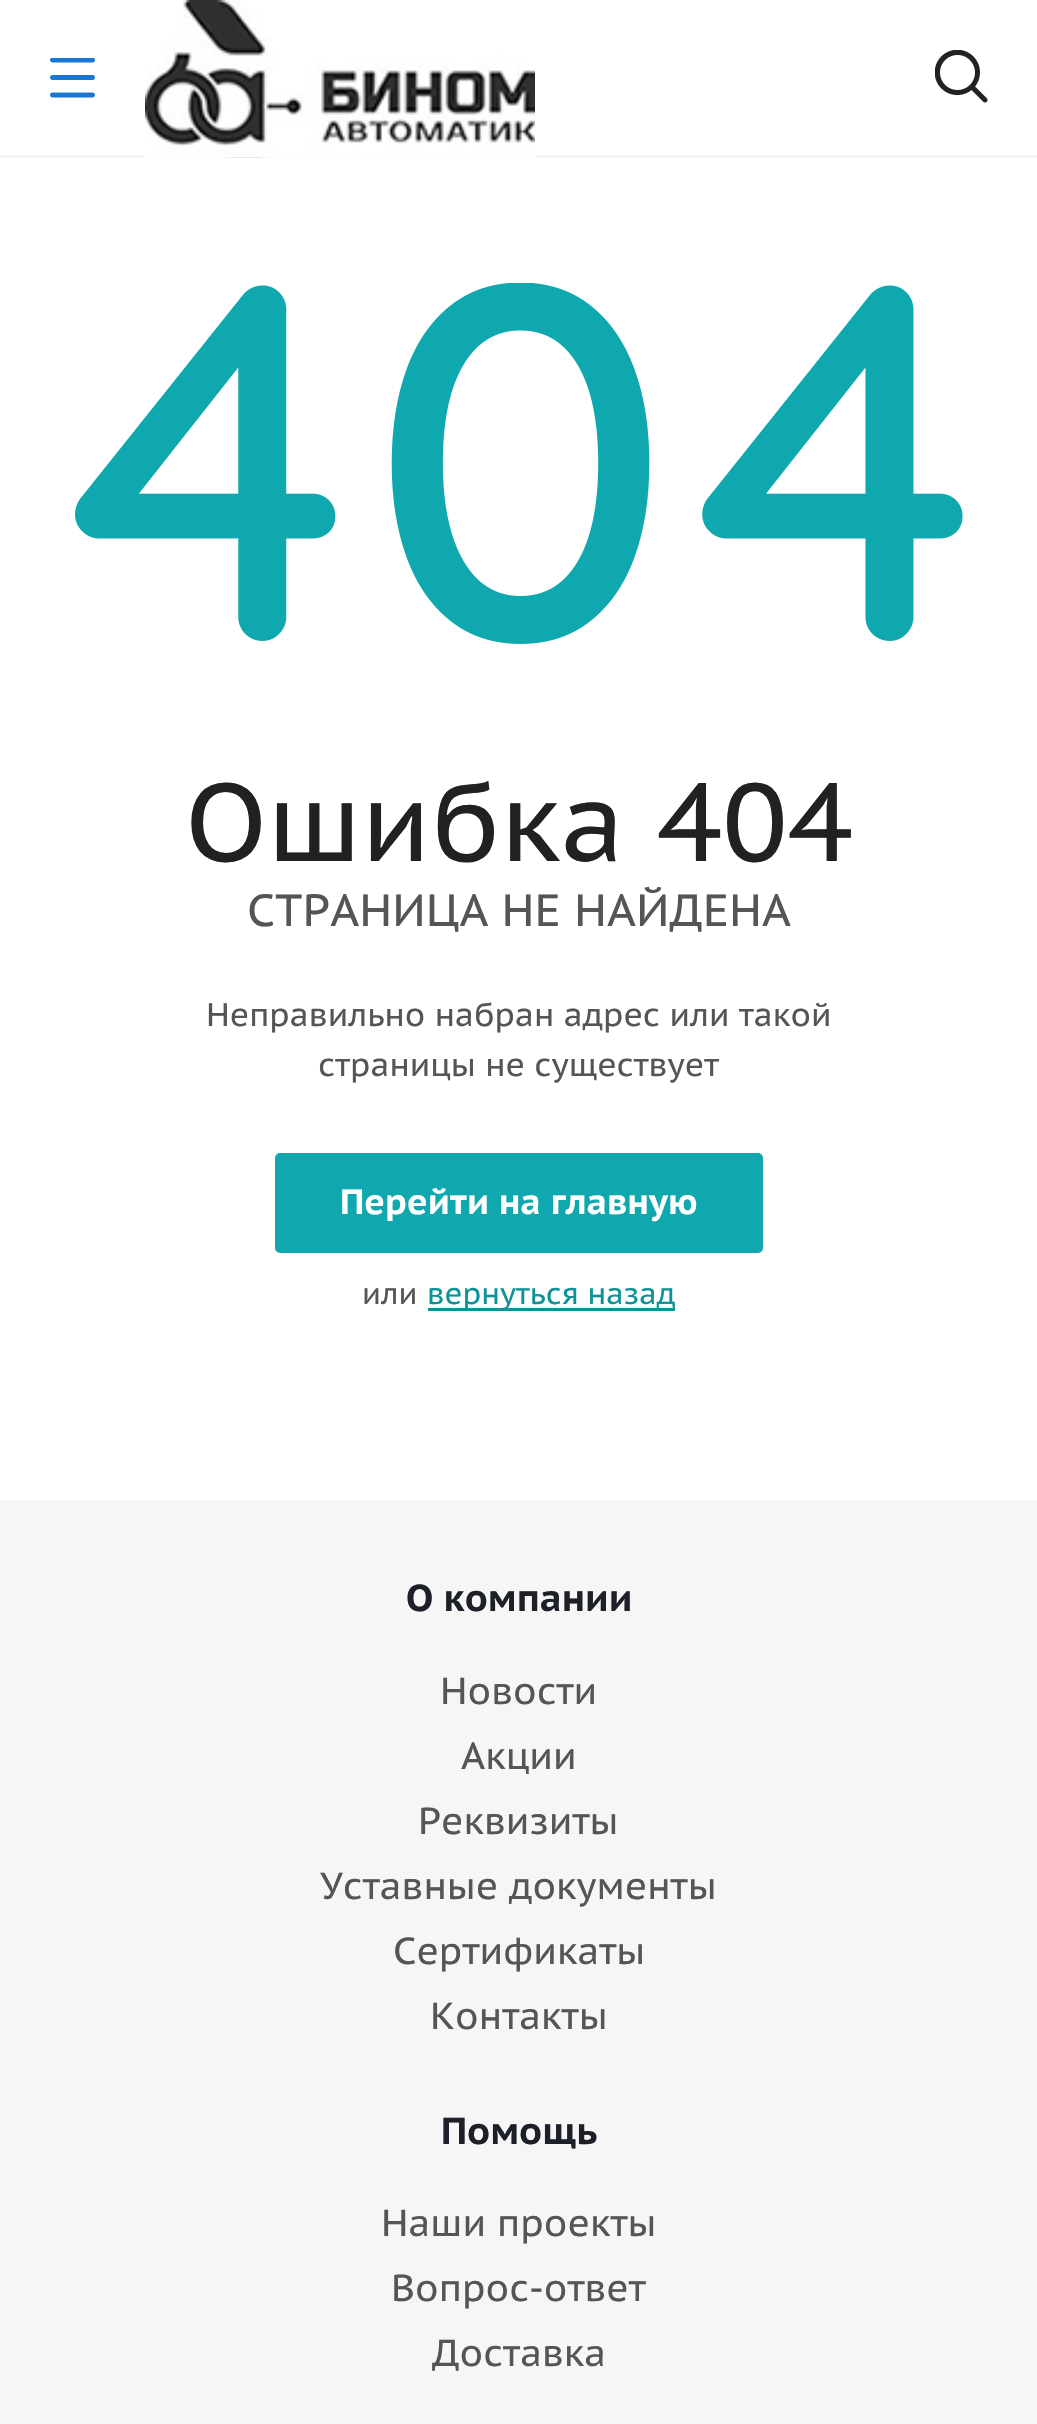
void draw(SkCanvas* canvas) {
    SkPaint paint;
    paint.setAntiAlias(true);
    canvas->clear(0xFFFFFFFF);
    paint.setColor(0xFFF5F5F5);
    canvas->drawRect(SkRect::MakeXYWH(0, 155, 1037, 3), paint);
    canvas->drawImageRect(SkImages::DeferredFromEncodedData(SkData::MakeFromFileName("img1.png")), SkRect::MakeXYWH(50, 58, 45, 40), SkSamplingOptions());
    canvas->drawImageRect(SkImages::DeferredFromEncodedData(SkData::MakeFromFileName("img2.png")), SkRect::MakeXYWH(145, 0, 390, 158), SkSamplingOptions());
    canvas->drawImageRect(SkImages::DeferredFromEncodedData(SkData::MakeFromFileName("img3.png")), SkRect::MakeXYWH(935, 50, 53, 53), SkSamplingOptions());
    canvas->drawImageRect(SkImages::DeferredFromEncodedData(SkData::MakeFromFileName("img4.png")), SkRect::MakeXYWH(75, 283, 888, 361), SkSamplingOptions());
    SkFont font1(fontMgr->matchFamilyStyle("PT Sans Caption", SkFontStyle::Normal()), 110);
    font1.setSubpixel(true);
    paint.setColor(0xFF212121);
    canvas->drawString("Ошибка 404", 185, 861, font1, paint);
    SkFont font2(fontMgr->matchFamilyStyle("PT Sans Caption", SkFontStyle::Normal()), 45);
    font2.setSubpixel(true);
    paint.setColor(0xFF555555);
    canvas->drawString("СТРАНИЦА НЕ НАЙДЕНА", 247, 926, font2, paint);
    SkFont font3(fontMgr->matchFamilyStyle("PT Sans Caption", SkFontStyle::Normal()), 32.5f);
    font3.setSubpixel(true);
    canvas->drawString("Неправильно набран адрес или такой", 206, 1026, font3, paint);
    canvas->drawString("страницы не существует", 318, 1076, font3, paint);
    paint.setColor(0xFF0FA8AE);
    canvas->drawRoundRect(SkRect::MakeXYWH(276.5f, 1154.5f, 485, 97), 3.5f, 3.5f, paint);
    paint.setStyle(SkPaint::kStroke_Style);
    paint.setStrokeWidth(3);
    canvas->drawRoundRect(SkRect::MakeXYWH(276.5f, 1154.5f, 485, 97), 3.5f, 3.5f, paint);
    SkFont font4(fontMgr->matchFamilyStyle("PT Sans Caption", SkFontStyle::Bold()), 35);
    font4.setSubpixel(true);
    paint.setStyle(SkPaint::kFill_Style);
    paint.setColor(0xFFFFFFFF);
    canvas->drawString("Перейти на главную", 340, 1214, font4, paint);
    SkFont font5(fontMgr->matchFamilyStyle("PT Sans Caption", SkFontStyle::Normal()), 30);
    font5.setSubpixel(true);
    paint.setColor(0xFF555555);
    canvas->drawString("или", 362, 1304, font5, paint);
    paint.setColor(0xFF0C9297);
    canvas->drawRect(SkRect::MakeXYWH(428, 1308, 247, 3), paint);
    canvas->drawString("вернуться назад", 427, 1304, font5, paint);
    paint.setColor(0xFFF6F6F7);
    canvas->drawRect(SkRect::MakeXYWH(0, 1500, 1037, 924), paint);
    SkFont font6(fontMgr->matchFamilyStyle("PT Sans Caption", SkFontStyle::Bold()), 37.5f);
    font6.setSubpixel(true);
    paint.setColor(0xFF1D2029);
    canvas->drawString("О компании", 406, 1611, font6, paint);
    SkFont font7(fontMgr->matchFamilyStyle("PT Sans Caption", SkFontStyle::Normal()), 37.5f);
    font7.setSubpixel(true);
    paint.setColor(0xFF555555);
    canvas->drawString("Новости", 440, 1704, font7, paint);
    canvas->drawString("Акции", 461, 1769, font7, paint);
    canvas->drawString("Реквизиты", 418, 1834, font7, paint);
    canvas->drawString("Уставные документы", 320, 1899, font7, paint);
    canvas->drawString("Сертификаты", 393, 1964, font7, paint);
    canvas->drawString("Контакты", 430, 2029, font7, paint);
    paint.setColor(0xFF1D2029);
    canvas->drawString("Помощь", 441, 2144, font6, paint);
    paint.setColor(0xFF555555);
    canvas->drawString("Наши проекты", 381, 2236, font7, paint);
    canvas->drawString("Вопрос-ответ", 391, 2301, font7, paint);
    canvas->drawString("Доставка", 432, 2366, font7, paint);
}
